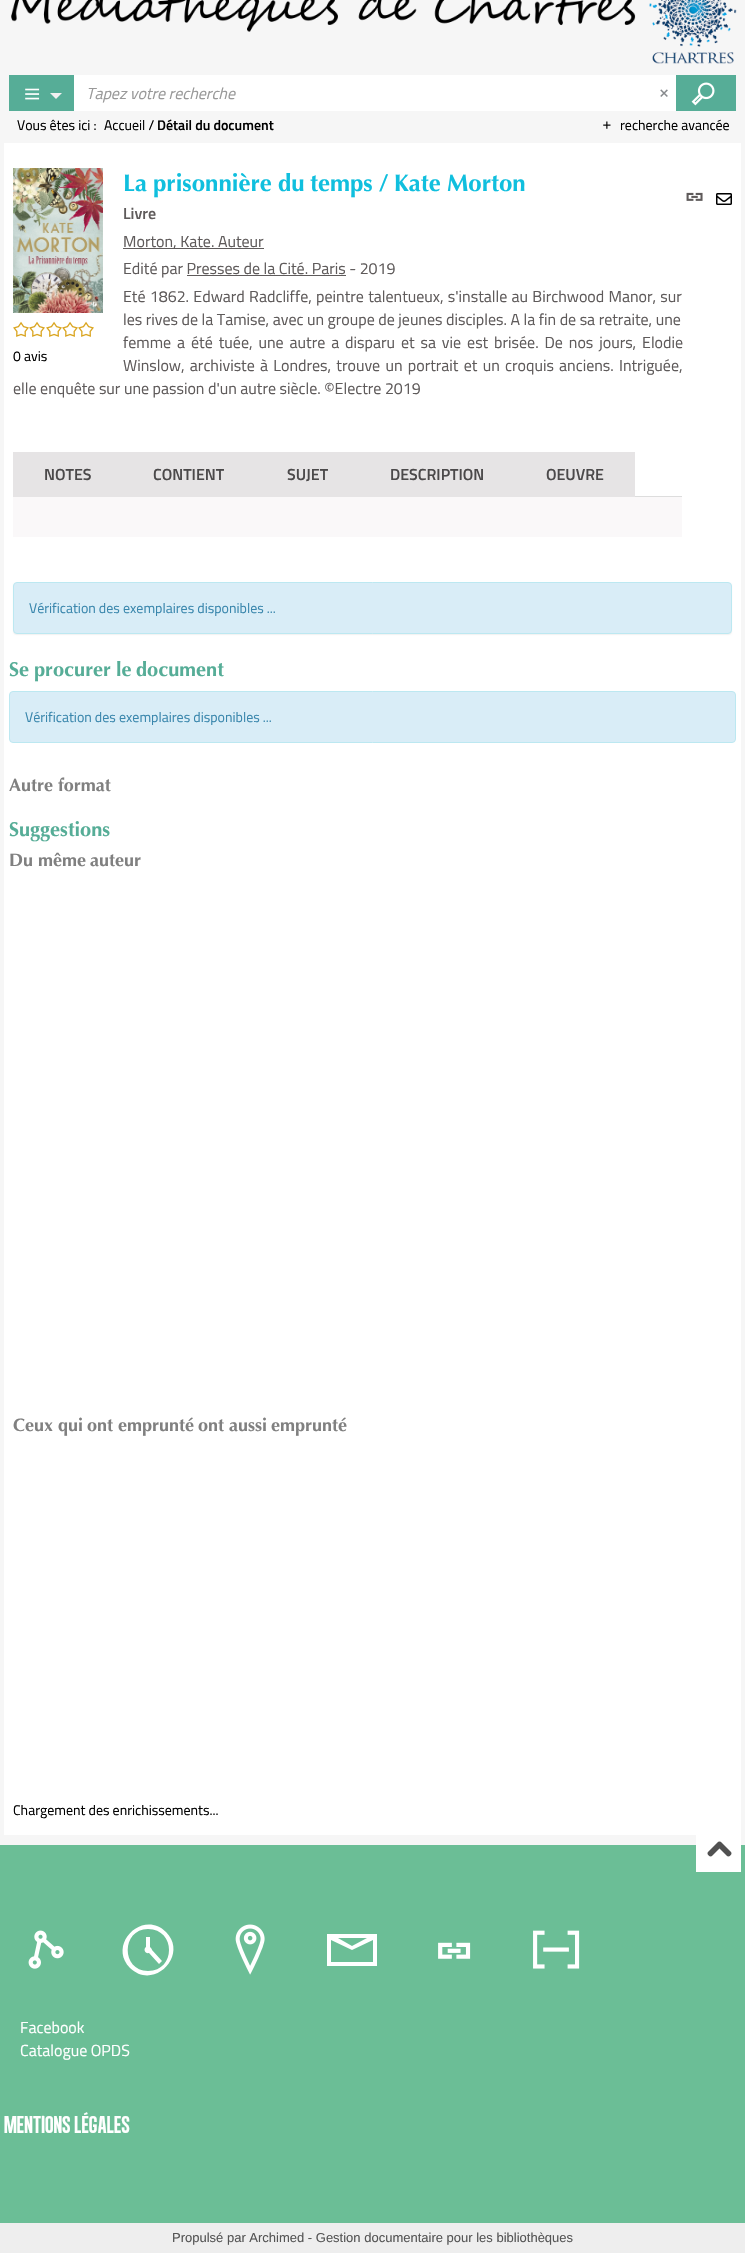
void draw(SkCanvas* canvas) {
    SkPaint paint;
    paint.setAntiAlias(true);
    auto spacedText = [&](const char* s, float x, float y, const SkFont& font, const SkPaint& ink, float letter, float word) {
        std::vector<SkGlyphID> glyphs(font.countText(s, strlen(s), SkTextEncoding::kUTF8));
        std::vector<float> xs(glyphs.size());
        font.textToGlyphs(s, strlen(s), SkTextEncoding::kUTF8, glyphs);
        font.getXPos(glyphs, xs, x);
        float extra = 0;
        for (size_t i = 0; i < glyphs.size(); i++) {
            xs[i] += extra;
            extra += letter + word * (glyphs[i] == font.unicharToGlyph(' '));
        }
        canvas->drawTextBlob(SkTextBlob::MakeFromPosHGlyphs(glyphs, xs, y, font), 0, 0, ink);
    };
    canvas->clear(0xFFF6F6F6);
    canvas->drawImageRect(SkImages::DeferredFromEncodedData(SkData::MakeFromFileName("img1.png")), SkRect::MakeXYWH(11, 0, 726, 64), SkSamplingOptions());
    paint.setColor(0xFF56AD97);
    canvas->drawRect(SkRect::MakeXYWH(9, 75, 65, 36), paint);
    canvas->drawImageRect(SkImages::DeferredFromEncodedData(SkData::MakeFromFileName("img2.png")), SkRect::MakeXYWH(25, 88, 15, 12), SkSamplingOptions());
    paint.setColor(0xFFF2F0F1);
    canvas->drawPath(SkPathBuilder().moveTo(50, 93).lineTo(62, 93).lineTo(56, 99).close().detach(), paint);
    paint.setColor(0xFFFFFFFF);
    canvas->drawRect(SkRect::MakeXYWH(74, 75, 602, 36), paint);
    SkFont font1(fontMgr->matchFamilyStyle("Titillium", SkFontStyle::Italic()), 16);
    font1.setSubpixel(true);
    paint.setColor(0xFF999999);
    canvas->drawString("Tapez votre recherche", 86, 99, font1, paint);
    canvas->drawImageRect(SkImages::DeferredFromEncodedData(SkData::MakeFromFileName("img3.png")), SkRect::MakeXYWH(660, 89, 8, 8), SkSamplingOptions());
    paint.setColor(0xFF56AD97);
    canvas->drawRect(SkRect::MakeXYWH(676, 75, 60, 36), paint);
    canvas->drawImageRect(SkImages::DeferredFromEncodedData(SkData::MakeFromFileName("img4.png")), SkRect::MakeXYWH(691, 82, 24, 24), SkSamplingOptions());
    canvas->drawImageRect(SkImages::DeferredFromEncodedData(SkData::MakeFromFileName("img5.png")), SkRect::MakeXYWH(603, 121, 8, 8), SkSamplingOptions());
    SkFont font2(fontMgr->matchFamilyStyle("Titillium", SkFontStyle::Normal()), 14);
    font2.setSubpixel(true);
    paint.setColor(0xFF000000);
    canvas->drawString("recherche avancée", 620, 130, font2, paint);
    canvas->drawString("Vous êtes ici :", 17, 130, font2, paint);
    canvas->drawString("Accueil /", 104, 130, font2, paint);
    SkFont font3(fontMgr->matchFamilyStyle("Titillium", SkFontStyle(600, SkFontStyle::kNormal_Width, SkFontStyle::kUpright_Slant)), 14);
    font3.setSubpixel(true);
    canvas->drawString("Détail du document", 157, 130, font3, paint);
    paint.setColor(0xFFFFFFFF);
    canvas->drawRect(SkRect::MakeXYWH(4, 143, 737, 1692), paint);
    SkFont font4(fontMgr->matchFamilyStyle("Optima", SkFontStyle::Bold()), 24);
    font4.setSubpixel(true);
    paint.setColor(0xFF10BFDE);
    canvas->drawString("La", 123, 191, font4, paint);
    canvas->drawString("prisonnière", 153, 191, font4, paint);
    canvas->drawString("du", 278, 191, font4, paint);
    canvas->drawString("temps", 310, 191, font4, paint);
    canvas->drawString("/", 379, 191, font4, paint);
    canvas->drawString("Kate", 394, 191, font4, paint);
    canvas->drawString("Morton", 447, 191, font4, paint);
    SkFont font5(fontMgr->matchFamilyStyle("Titillium", SkFontStyle(600, SkFontStyle::kNormal_Width, SkFontStyle::kUpright_Slant)), 16);
    font5.setSubpixel(true);
    paint.setColor(0xFF5F5B5B);
    canvas->drawString("Livre", 123, 219, font5, paint);
    canvas->drawRect(SkRect::MakeXYWH(123, 248, 141, 1), paint);
    SkFont font6(fontMgr->matchFamilyStyle("Titillium", SkFontStyle::Normal()), 16);
    font6.setSubpixel(true);
    canvas->drawString("Morton, Kate. Auteur", 123, 247, font6, paint);
    canvas->drawString("Edité par Presses de la Cité. Paris - 2019", 123, 274, font6, paint);
    canvas->drawRect(SkRect::MakeXYWH(187, 275, 159, 1), paint);
    spacedText("Eté 1862. Edward Radcliffe, peintre talentueux, s'installe au Birchwood Manor, sur", 123, 302, font6, paint, 0, 0.75f);
    canvas->drawString("les rives de la Tamise, avec un groupe de jeunes disciples. A la fin de sa retraite, une", 123, 325, font6, paint);
    spacedText("femme a été tuée, une autre a disparu et sa vie est brisée. De nos jours, Elodie", 123, 348, font6, paint, 0, 2.4f);
    spacedText("Winslow, archiviste à Londres, trouve un portrait et un croquis anciens. Intriguée,", 123, 371, font6, paint, 0, 1.75f);
    canvas->drawString("elle enquête sur une passion d'un autre siècle. ©Electre 2019", 13, 394, font6, paint);
    paint.setColor(0xFFDDDDDD);
    canvas->drawRect(SkRect::MakeXYWH(635, 496, 47, 1), paint);
    paint.setColor(0xFFE6E4E5);
    canvas->drawRect(SkRect::MakeXYWH(13, 452, 622, 45), paint);
    paint.setColor(0xFF4B494A);
    canvas->drawString("NOTES", 44, 480, font5, paint);
    canvas->drawString("CONTIENT", 153, 480, font5, paint);
    canvas->drawString("SUJET", 287, 480, font5, paint);
    canvas->drawString("DESCRIPTION", 390, 480, font5, paint);
    canvas->drawString("OEUVRE", 546, 480, font5, paint);
    paint.setColor(0xFFFAF8F9);
    canvas->drawRect(SkRect::MakeXYWH(13, 497, 669, 40), paint);
    canvas->drawImageRect(SkImages::DeferredFromEncodedData(SkData::MakeFromFileName("img6.png")), SkRect::MakeXYWH(13, 168, 90, 145), SkSamplingOptions());
    canvas->drawImageRect(SkImages::DeferredFromEncodedData(SkData::MakeFromFileName("img7.png")), SkRect::MakeXYWH(13, 321, 16, 16), SkSamplingOptions());
    canvas->drawImageRect(SkImages::DeferredFromEncodedData(SkData::MakeFromFileName("img7.png")), SkRect::MakeXYWH(29, 321, 16, 16), SkSamplingOptions());
    canvas->drawImageRect(SkImages::DeferredFromEncodedData(SkData::MakeFromFileName("img7.png")), SkRect::MakeXYWH(46, 321, 16, 16), SkSamplingOptions());
    canvas->drawImageRect(SkImages::DeferredFromEncodedData(SkData::MakeFromFileName("img7.png")), SkRect::MakeXYWH(62, 321, 16, 16), SkSamplingOptions());
    canvas->drawImageRect(SkImages::DeferredFromEncodedData(SkData::MakeFromFileName("img7.png")), SkRect::MakeXYWH(78, 321, 16, 16), SkSamplingOptions());
    paint.setColor(0xFF000000);
    canvas->drawString("0 avis", 13, 361, font2, paint);
    canvas->drawImageRect(SkImages::DeferredFromEncodedData(SkData::MakeFromFileName("img8.png")), SkRect::MakeXYWH(686, 192, 17, 9), SkSamplingOptions());
    canvas->drawImageRect(SkImages::DeferredFromEncodedData(SkData::MakeFromFileName("img9.png")), SkRect::MakeXYWH(716, 193, 16, 12), SkSamplingOptions());
    paint.setColor(0x0D000000);
    paint.setMaskFilter(SkMaskFilter::MakeBlur(kNormal_SkBlurStyle, 0.5f));
    canvas->drawRoundRect(SkRect::MakeXYWH(13, 583, 719, 52), 4, 4, paint);
    paint.setMaskFilter(nullptr);
    paint.setColor(0xFFD9EDF7);
    canvas->drawRoundRect(SkRect::MakeXYWH(13.5f, 582.5f, 718, 51), 3.5f, 3.5f, paint);
    paint.setStyle(SkPaint::kStroke_Style);
    paint.setStrokeWidth(1);
    paint.setColor(0xFFBCE8F1);
    canvas->drawRoundRect(SkRect::MakeXYWH(13.5f, 582.5f, 718, 51), 3.5f, 3.5f, paint);
    paint.setStyle(SkPaint::kFill_Style);
    paint.setColor(0xFF3A87AD);
    canvas->drawString("Vérification des exemplaires disponibles ...", 29, 613, font2, paint);
    SkFont font7(fontMgr->matchFamilyStyle("Optima", SkFontStyle::Bold()), 20);
    font7.setSubpixel(true);
    paint.setColor(0xFF56AD97);
    canvas->drawString("Se", 9, 676, font7, paint);
    canvas->drawString("procurer", 34, 676, font7, paint);
    canvas->drawString("le", 116, 676, font7, paint);
    canvas->drawString("document", 136, 676, font7, paint);
    paint.setColor(0xFFD9EDF7);
    canvas->drawRoundRect(SkRect::MakeXYWH(9.5f, 691.5f, 726, 51), 3.5f, 3.5f, paint);
    paint.setStyle(SkPaint::kStroke_Style);
    paint.setColor(0xFFBCE8F1);
    canvas->drawRoundRect(SkRect::MakeXYWH(9.5f, 691.5f, 726, 51), 3.5f, 3.5f, paint);
    paint.setStyle(SkPaint::kFill_Style);
    paint.setColor(0xFF3A87AD);
    canvas->drawString("Vérification des exemplaires disponibles ...", 25, 722, font2, paint);
    SkFont font8(fontMgr->matchFamilyStyle("Optima", SkFontStyle::Bold()), 18);
    font8.setSubpixel(true);
    paint.setColor(0xFF808080);
    canvas->drawString("Autre", 9, 791, font8, paint);
    canvas->drawString("format", 58, 791, font8, paint);
    paint.setColor(0xFF56AD97);
    canvas->drawString("Suggestions", 9, 836, font7, paint);
    paint.setColor(0xFF808080);
    canvas->drawString("Du", 9, 866, font8, paint);
    canvas->drawString("même", 38, 866, font8, paint);
    canvas->drawString("auteur", 90, 866, font8, paint);
    canvas->drawString("Ceux", 13, 1431, font8, paint);
    canvas->drawString("qui", 58, 1431, font8, paint);
    canvas->drawString("ont", 87, 1431, font8, paint);
    canvas->drawString("emprunté", 118, 1431, font8, paint);
    canvas->drawString("ont", 198, 1431, font8, paint);
    canvas->drawString("aussi", 229, 1431, font8, paint);
    canvas->drawString("emprunté", 271, 1431, font8, paint);
    paint.setColor(0xFF000000);
    canvas->drawString("Chargement des enrichissements...", 13, 1815, font2, paint);
    paint.setColor(0xFF6BBE96);
    canvas->drawRect(SkRect::MakeXYWH(0, 1845, 745, 378), paint);
    paint.setColor(0xFFFFFFFF);
    canvas->drawRect(SkRect::MakeXYWH(696, 1835, 45, 37), paint);
    canvas->drawImageRect(SkImages::DeferredFromEncodedData(SkData::MakeFromFileName("img10.png")), SkRect::MakeXYWH(707, 1841, 25, 16), SkSamplingOptions());
    canvas->drawImageRect(SkImages::DeferredFromEncodedData(SkData::MakeFromFileName("img11.png")), SkRect::MakeXYWH(28, 1930, 36, 39), SkSamplingOptions());
    canvas->drawPath(SkPathBuilder().moveTo(166, 1932).cubicTo(143, 1909, 107, 1944, 130, 1968).cubicTo(154, 1991, 189, 1955, 166, 1932).close().moveTo(148, 1971).cubicTo(121, 1971, 121, 1929, 148, 1929).cubicTo(176, 1929, 176, 1971, 148, 1971).close().moveTo(152, 1950).cubicTo(152, 1949, 151, 1948, 150, 1947).lineTo(150, 1937).lineTo(146, 1937).lineTo(146, 1947).cubicTo(143, 1949, 145, 1954, 149, 1953).lineTo(159, 1964).lineTo(162, 1961).close().detach(), paint);
    canvas->drawImageRect(SkImages::DeferredFromEncodedData(SkData::MakeFromFileName("img12.png")), SkRect::MakeXYWH(235, 1924, 30, 51), SkSamplingOptions());
    canvas->drawPath(SkPathBuilder().moveTo(327, 1934).lineTo(327, 1966).lineTo(377, 1966).lineTo(377, 1934).close().moveTo(367, 1938).lineTo(352, 1946).lineTo(338, 1938).close().moveTo(331, 1962).lineTo(331, 1940).lineTo(352, 1950).lineTo(373, 1940).lineTo(373, 1962).close().detach(), paint);
    canvas->drawImageRect(SkImages::DeferredFromEncodedData(SkData::MakeFromFileName("img13.png")), SkRect::MakeXYWH(438, 1942, 33, 17), SkSamplingOptions());
    canvas->drawImageRect(SkImages::DeferredFromEncodedData(SkData::MakeFromFileName("img14.png")), SkRect::MakeXYWH(533, 1930, 47, 39), SkSamplingOptions());
    canvas->drawString("Facebook", 20, 2033, font6, paint);
    canvas->drawString("Catalogue OPDS", 20, 2056, font6, paint);
    SkFont font9(fontMgr->matchFamilyStyle("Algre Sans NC", SkFontStyle::Normal()), 25);
    font9.setSubpixel(true);
    canvas->drawString("MENTIONS LÉGALES", 4, 2133, font9, paint);
    paint.setColor(0xFFEEEEEE);
    canvas->drawRect(SkRect::MakeXYWH(0, 2223, 745, 30), paint);
    SkFont font10(fontMgr->matchFamilyStyle("Liberation Sans", SkFontStyle::Normal()), 13);
    font10.setSubpixel(true);
    paint.setColor(0xFF555555);
    canvas->drawString("Propulsé par Archimed - Gestion documentaire pour les bibliothèques", 172, 2242, font10, paint);
}
